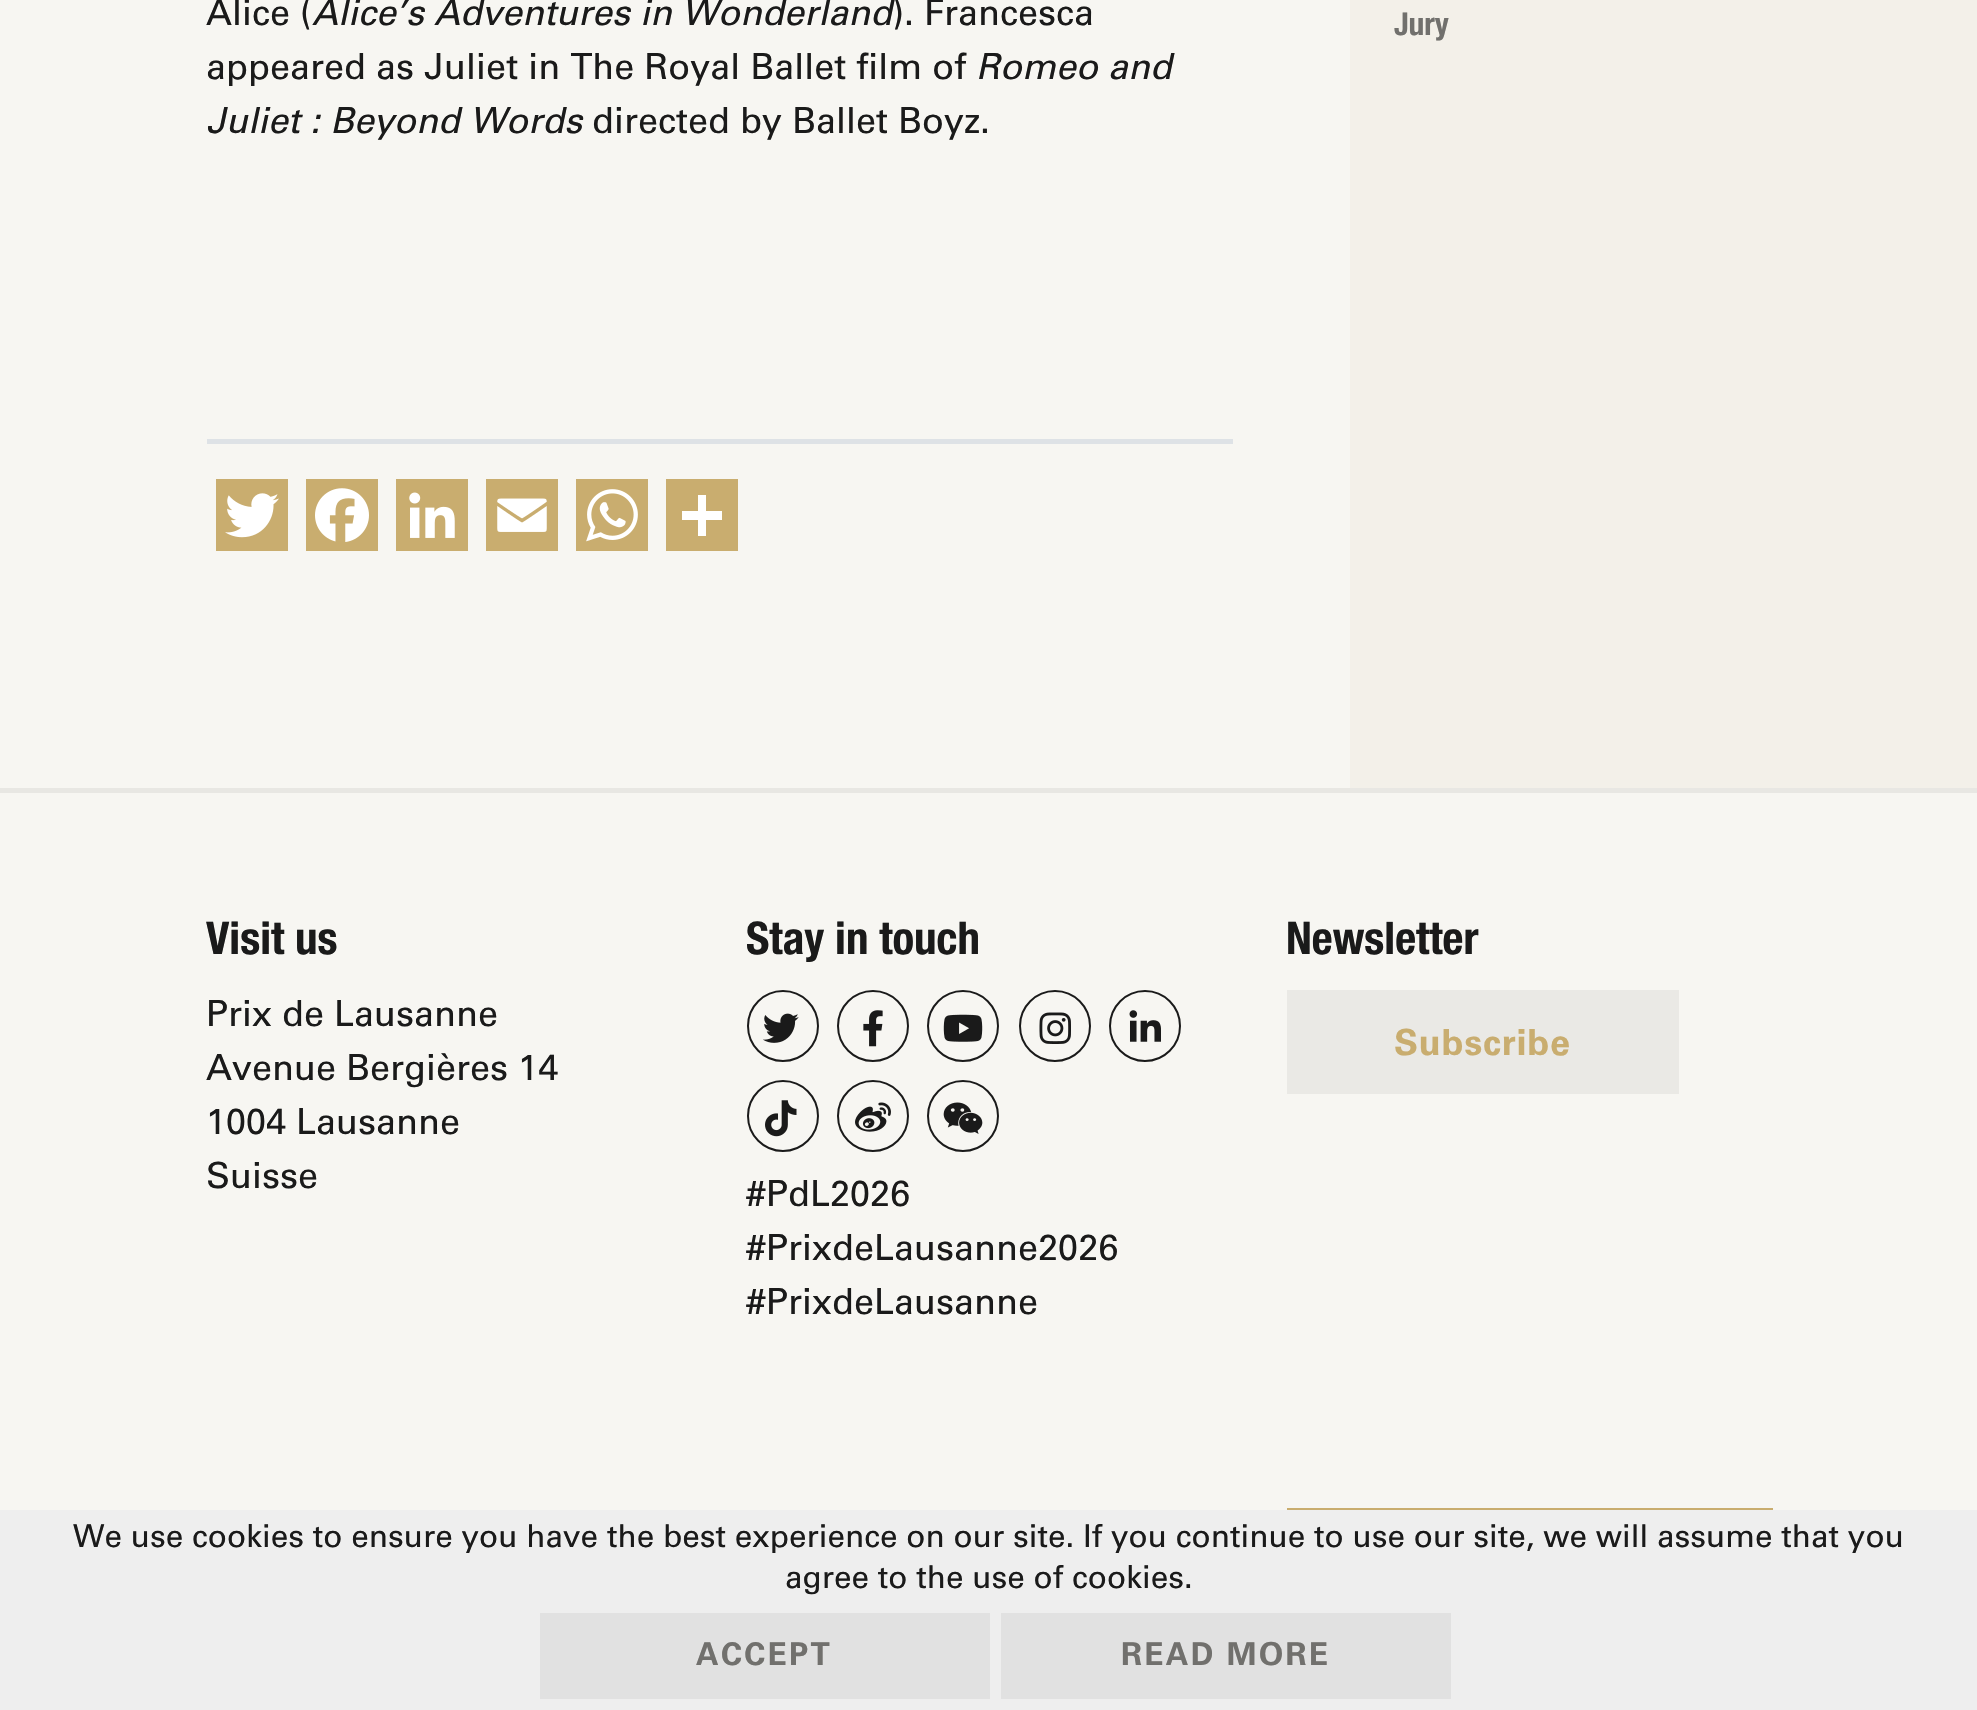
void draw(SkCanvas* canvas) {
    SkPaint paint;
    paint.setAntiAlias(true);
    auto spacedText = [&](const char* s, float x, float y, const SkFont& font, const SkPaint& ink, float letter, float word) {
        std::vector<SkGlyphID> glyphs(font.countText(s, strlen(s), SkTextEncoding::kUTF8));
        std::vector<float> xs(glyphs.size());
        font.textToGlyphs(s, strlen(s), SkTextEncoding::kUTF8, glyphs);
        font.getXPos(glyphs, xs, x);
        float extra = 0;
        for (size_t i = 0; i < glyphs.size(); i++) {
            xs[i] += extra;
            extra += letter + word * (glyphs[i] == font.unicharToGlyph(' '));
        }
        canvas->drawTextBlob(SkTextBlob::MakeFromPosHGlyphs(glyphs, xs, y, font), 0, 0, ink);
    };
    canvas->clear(0xFFF7F6F2);
    SkFont font1(fontMgr->matchFamilyStyle("Univers", SkFontStyle::Normal()), 36);
    font1.setSubpixel(true);
    paint.setColor(0xFF1A1A1A);
    canvas->drawString("Alice (", 206, 25, font1, paint);
    SkFont font2(fontMgr->matchFamilyStyle("Univers", SkFontStyle::Italic()), 36);
    font2.setSubpixel(true);
    canvas->drawString("Alice’s Adventures in Wonderland", 312, 25, font2, paint);
    canvas->drawString("). Francesca", 892, 25, font1, paint);
    canvas->drawString("appeared as Juliet in The Royal Ballet film of", 206, 79, font1, paint);
    canvas->drawString("Romeo and", 976, 79, font2, paint);
    canvas->drawString("Juliet : Beyond Words", 206, 133, font2, paint);
    canvas->drawString("directed by Ballet Boyz.", 592, 133, font1, paint);
    paint.setColor(0xFFDEE2E6);
    canvas->drawRect(SkRect::MakeXYWH(207, 439, 1026, 5), paint);
    paint.setColor(0xFFC9AD6F);
    canvas->drawRect(SkRect::MakeXYWH(216, 479, 72, 72), paint);
    canvas->drawImageRect(SkImages::DeferredFromEncodedData(SkData::MakeFromFileName("img1.png")), SkRect::MakeXYWH(225, 493, 54, 45), SkSamplingOptions());
    canvas->drawRect(SkRect::MakeXYWH(306, 479, 72, 72), paint);
    canvas->drawImageRect(SkImages::DeferredFromEncodedData(SkData::MakeFromFileName("img2.png")), SkRect::MakeXYWH(315, 488, 54, 54), SkSamplingOptions());
    canvas->drawRect(SkRect::MakeXYWH(396, 479, 72, 72), paint);
    canvas->drawImageRect(SkImages::DeferredFromEncodedData(SkData::MakeFromFileName("img3.png")), SkRect::MakeXYWH(409, 492, 46, 46), SkSamplingOptions());
    canvas->drawRect(SkRect::MakeXYWH(486, 479, 72, 72), paint);
    canvas->drawImageRect(SkImages::DeferredFromEncodedData(SkData::MakeFromFileName("img4.png")), SkRect::MakeXYWH(497, 498, 50, 34), SkSamplingOptions());
    canvas->drawRect(SkRect::MakeXYWH(576, 479, 72, 72), paint);
    canvas->drawImageRect(SkImages::DeferredFromEncodedData(SkData::MakeFromFileName("img5.png")), SkRect::MakeXYWH(586, 489, 52, 53), SkSamplingOptions());
    canvas->drawRect(SkRect::MakeXYWH(666, 479, 72, 72), paint);
    paint.setColor(0xFFFFFFFF);
    canvas->drawRect(SkRect::MakeXYWH(698, 495, 8, 41), paint);
    canvas->drawRect(SkRect::MakeXYWH(682, 511, 40, 9), paint);
    paint.setColor(0xFFF3F0E9);
    canvas->drawRect(SkRect::MakeXYWH(1350, 0, 627, 788), paint);
    SkFont font3(fontMgr->matchFamilyStyle("Helvetica Neue", SkFontStyle::Bold()), 31.5f);
    font3.setSubpixel(true);
    paint.setColor(0xFF71706D);
    canvas->drawString("Jury", 1394, 35, font3, paint);
    paint.setColor(0xFFE8E7E3);
    canvas->drawRect(SkRect::MakeXYWH(0, 788, 1977, 5), paint);
    SkFont font4(fontMgr->matchFamilyStyle("Helvetica Neue", SkFontStyle::Bold()), 45);
    font4.setSubpixel(true);
    paint.setColor(0xFF1A1A1A);
    canvas->drawString("Visit us", 206, 954, font4, paint);
    canvas->drawString("Prix de Lausanne", 206, 1026, font1, paint);
    canvas->drawString("Avenue Bergières 14", 206, 1080, font1, paint);
    canvas->drawString("1004 Lausanne", 206, 1134, font1, paint);
    canvas->drawString("Suisse", 206, 1188, font1, paint);
    canvas->drawString("Stay in touch", 746, 954, font4, paint);
    paint.setStyle(SkPaint::kStroke_Style);
    paint.setStrokeWidth(2);
    canvas->drawCircle(783, 1026, 35, paint);
    canvas->drawImageRect(SkImages::DeferredFromEncodedData(SkData::MakeFromFileName("img6.png")), SkRect::MakeXYWH(763, 1013, 36, 30), SkSamplingOptions());
    canvas->drawCircle(873, 1026, 35, paint);
    canvas->drawImageRect(SkImages::DeferredFromEncodedData(SkData::MakeFromFileName("img7.png")), SkRect::MakeXYWH(863, 1010, 20, 37), SkSamplingOptions());
    canvas->drawCircle(963, 1026, 35, paint);
    canvas->drawImageRect(SkImages::DeferredFromEncodedData(SkData::MakeFromFileName("img8.png")), SkRect::MakeXYWH(943, 1014, 40, 28), SkSamplingOptions());
    canvas->drawCircle(1055, 1026, 35, paint);
    canvas->drawImageRect(SkImages::DeferredFromEncodedData(SkData::MakeFromFileName("img9.png")), SkRect::MakeXYWH(1039, 1012, 32, 32), SkSamplingOptions());
    canvas->drawCircle(1145, 1026, 35, paint);
    canvas->drawImageRect(SkImages::DeferredFromEncodedData(SkData::MakeFromFileName("img10.png")), SkRect::MakeXYWH(1129, 1010, 32, 32), SkSamplingOptions());
    canvas->drawCircle(783, 1116, 35, paint);
    canvas->drawImageRect(SkImages::DeferredFromEncodedData(SkData::MakeFromFileName("img11.png")), SkRect::MakeXYWH(765, 1100, 32, 37), SkSamplingOptions());
    canvas->drawCircle(873, 1116, 35, paint);
    canvas->drawImageRect(SkImages::DeferredFromEncodedData(SkData::MakeFromFileName("img12.png")), SkRect::MakeXYWH(855, 1102, 36, 30), SkSamplingOptions());
    canvas->drawCircle(963, 1116, 35, paint);
    canvas->drawImageRect(SkImages::DeferredFromEncodedData(SkData::MakeFromFileName("img13.png")), SkRect::MakeXYWH(943, 1102, 40, 32), SkSamplingOptions());
    paint.setStyle(SkPaint::kFill_Style);
    canvas->drawString("#PdL2026", 746, 1206, font1, paint);
    canvas->drawString("#PrixdeLausanne2026", 746, 1260, font1, paint);
    canvas->drawString("#PrixdeLausanne", 746, 1314, font1, paint);
    canvas->drawString("Newsletter", 1286, 954, font4, paint);
    paint.setColor(0xFFEAE9E5);
    canvas->drawRect(SkRect::MakeXYWH(1287, 990, 392, 104), paint);
    SkFont font5(fontMgr->matchFamilyStyle("Univers", SkFontStyle::Bold()), 36);
    font5.setSubpixel(true);
    paint.setColor(0xFFC9AD6F);
    spacedText("Subscribe", 1394, 1055, font5, paint, 0.75f, 0);
    canvas->drawRect(SkRect::MakeXYWH(1287, 1508, 486, 2), paint);
    paint.setColor(0xFFEEEEEE);
    canvas->drawRect(SkRect::MakeXYWH(0, 1510, 1977, 200), paint);
    SkFont font6(fontMgr->matchFamilyStyle("Univers", SkFontStyle::Normal()), 31.5f);
    font6.setSubpixel(true);
    paint.setColor(0xFF1A1A1A);
    canvas->drawString("We use cookies to ensure you have the best experience on our site. If you continue to use our site, we will assume that you", 73, 1547, font6, paint);
    canvas->drawString("agree to the use of cookies.", 785, 1588, font6, paint);
    paint.setColor(0xFFE1E1E1);
    canvas->drawRect(SkRect::MakeXYWH(540, 1613, 450, 86), paint);
    SkFont font7(fontMgr->matchFamilyStyle("Univers", SkFontStyle::Bold()), 31.5f);
    font7.setSubpixel(true);
    paint.setColor(0xFF71706D);
    spacedText("ACCEPT", 696, 1665, font7, paint, 2.25f, 0);
    paint.setColor(0xFFE1E1E1);
    canvas->drawRect(SkRect::MakeXYWH(1001, 1613, 450, 86), paint);
    paint.setColor(0xFF71706D);
    spacedText("READ MORE", 1121, 1665, font7, paint, 2.25f, 0);
}
